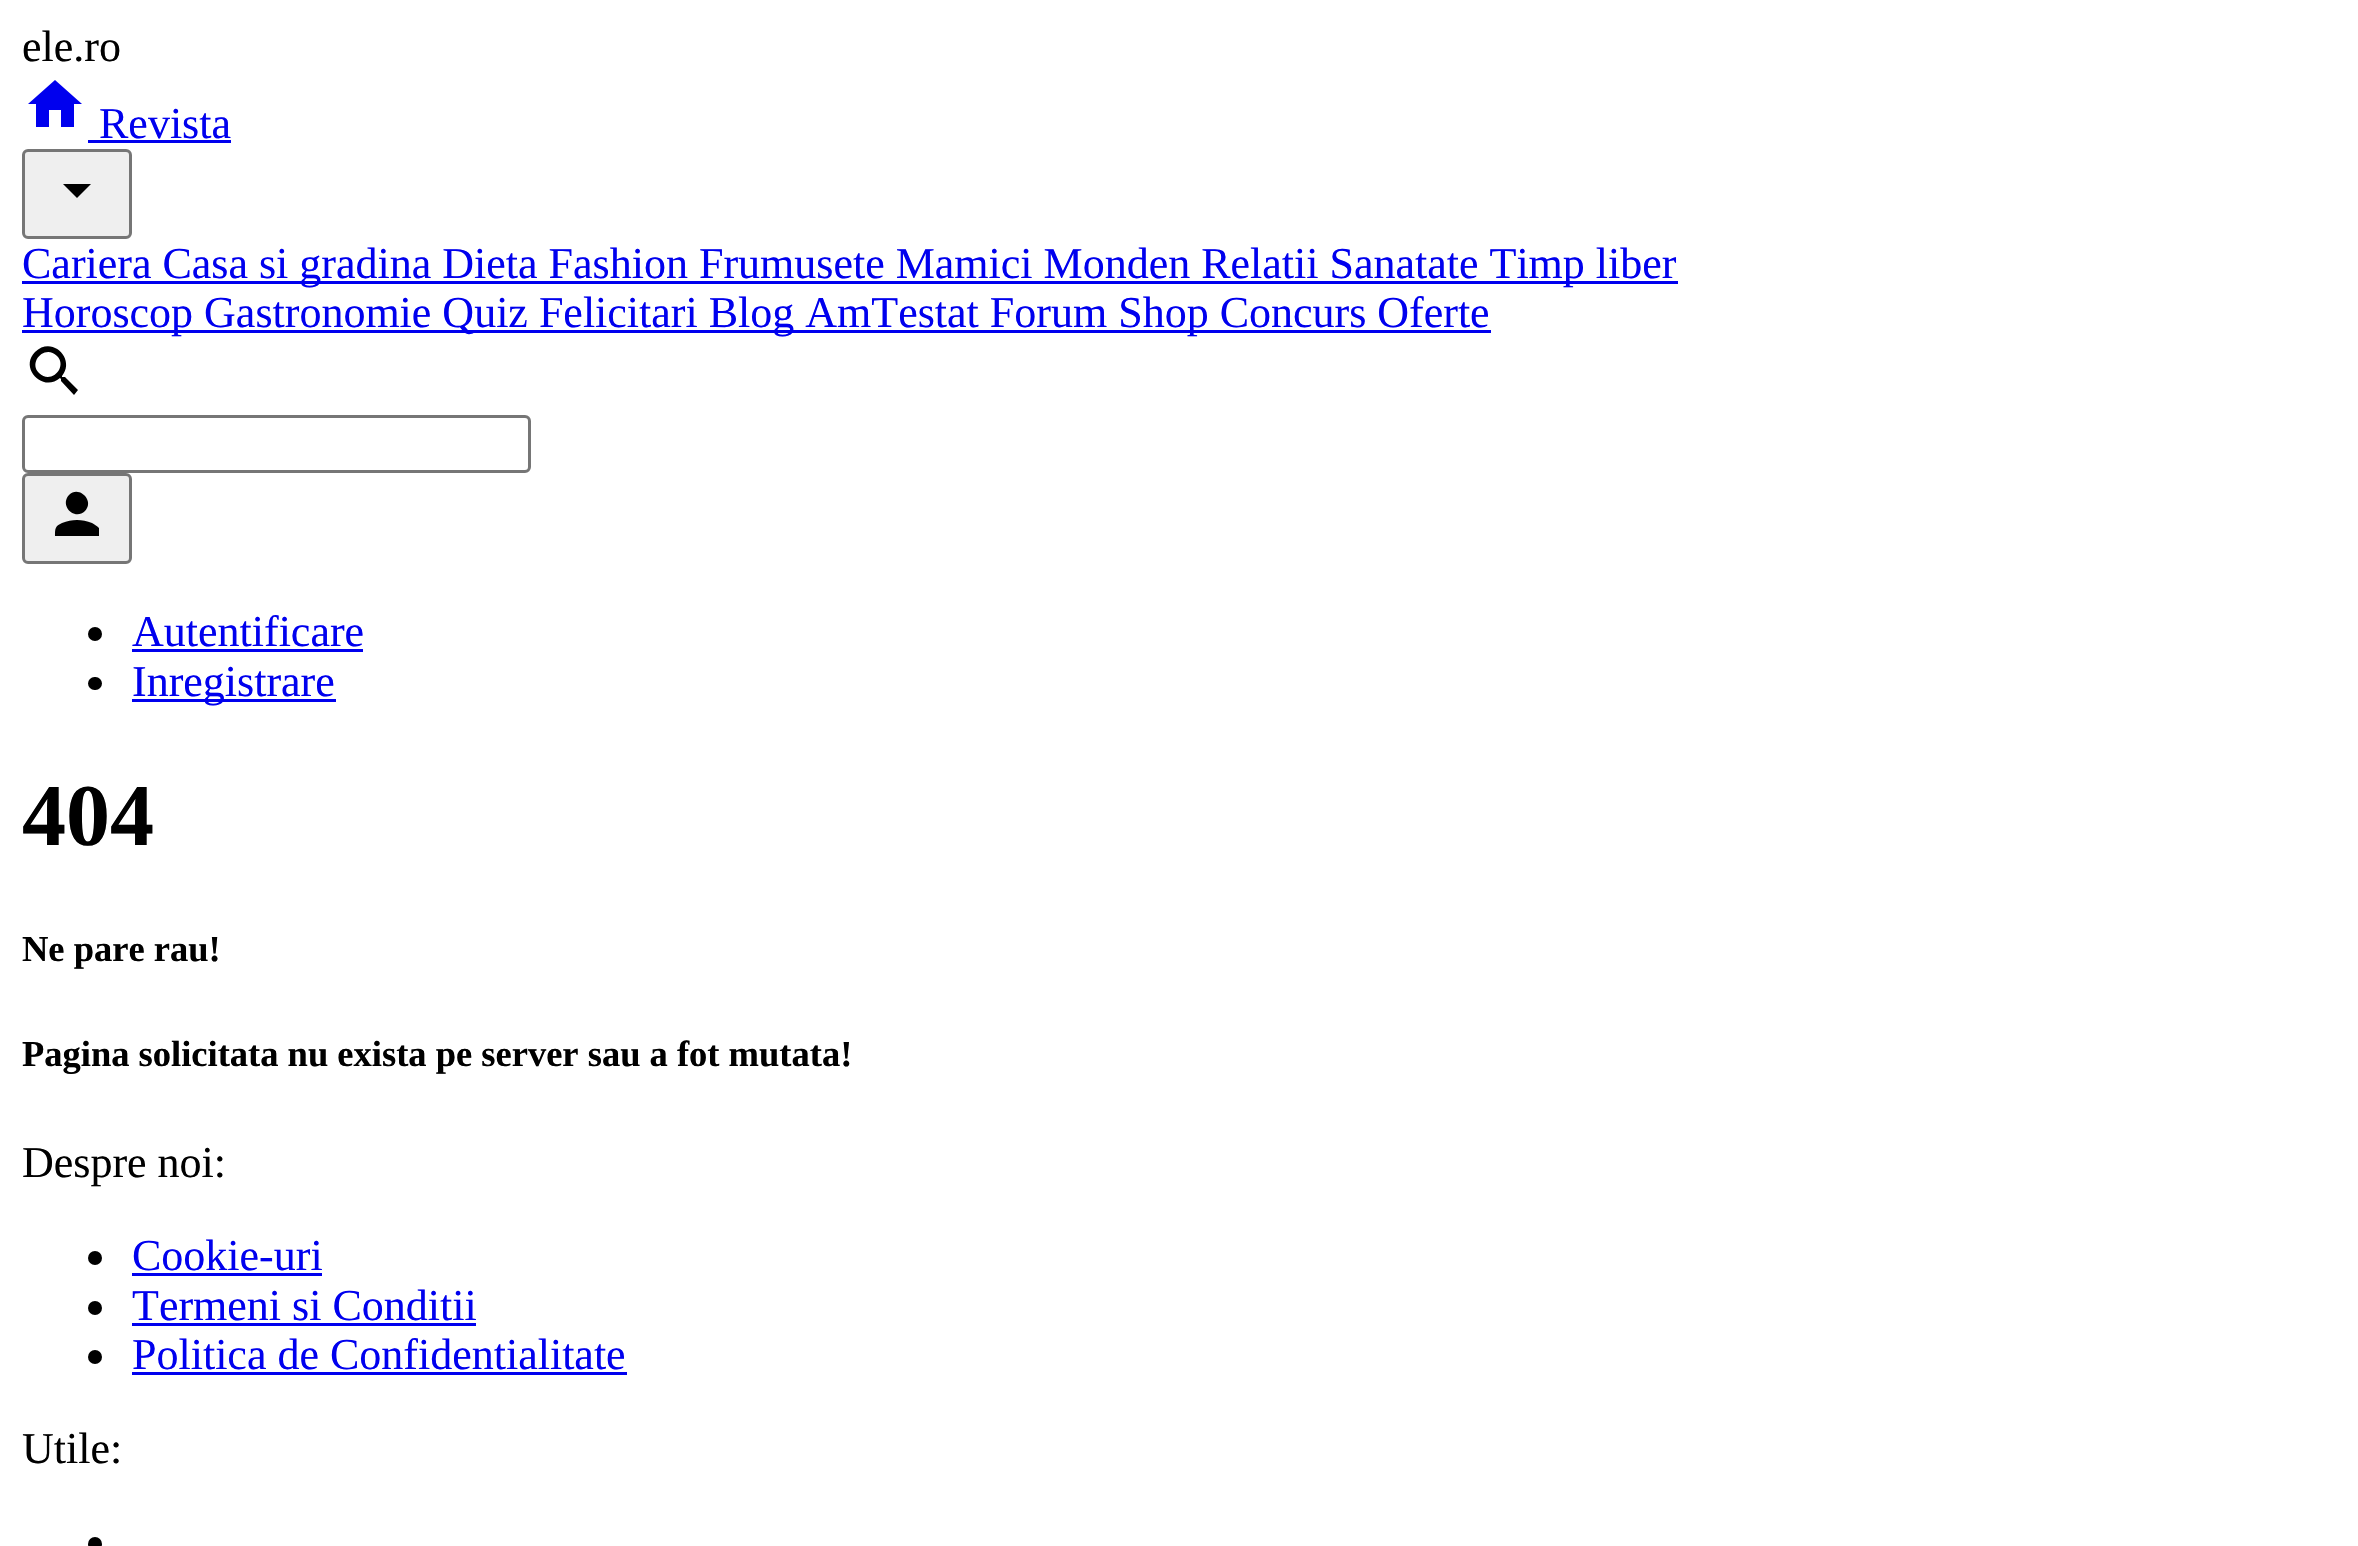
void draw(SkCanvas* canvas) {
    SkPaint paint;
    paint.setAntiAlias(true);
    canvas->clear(0xFFFFFFFF);
    SkFont font1(fontMgr->matchFamilyStyle("Liberation Serif", SkFontStyle::Normal()), 44);
    font1.setSubpixel(true);
    paint.setColor(0xFF000000);
    canvas->drawString("ele.ro", 22, 61, font1, paint);
    paint.setColor(0xFF0000EE);
    canvas->drawPath(SkPathBuilder().moveTo(49, 127).lineTo(36, 127).lineTo(36, 104).lineTo(28, 104).lineTo(55, 80).lineTo(82, 104).lineTo(74, 104).lineTo(74, 127).lineTo(61, 127).lineTo(61, 110).lineTo(49, 110).close().detach(), paint);
    canvas->drawString("Revista", 99, 138, font1, paint);
    canvas->drawRect(SkRect::MakeXYWH(88, 140, 143, 3), paint);
    paint.setColor(0xFFEFEFEF);
    canvas->drawRoundRect(SkRect::MakeXYWH(23.5f, 150.5f, 107, 87), 4.5f, 4.5f, paint);
    paint.setStyle(SkPaint::kStroke_Style);
    paint.setStrokeWidth(3);
    paint.setColor(0xFF767676);
    canvas->drawRoundRect(SkRect::MakeXYWH(23.5f, 150.5f, 107, 87), 4.5f, 4.5f, paint);
    paint.setStyle(SkPaint::kFill_Style);
    paint.setColor(0xFF000000);
    canvas->drawPath(SkPathBuilder().moveTo(63, 184).lineTo(91, 184).lineTo(77, 198).close().detach(), paint);
    paint.setColor(0xFF0000EE);
    canvas->drawRect(SkRect::MakeXYWH(22, 281, 1656, 3), paint);
    canvas->drawString("Cariera Casa si gradina Dieta Fashion Frumusete Mamici Monden Relatii Sanatate Timp liber", 22, 278, font1, paint);
    canvas->drawRect(SkRect::MakeXYWH(22, 330, 1469, 3), paint);
    canvas->drawString("Horoscop Gastronomie Quiz Felicitari Blog AmTestat Forum Shop Concurs Oferte", 22, 327, font1, paint);
    paint.setColor(0xFF000000);
    canvas->drawPath(SkPathBuilder().moveTo(39, 373).cubicTo(51, 385, 68, 367, 57, 356).cubicTo(45, 344, 28, 362, 39, 373).close().moveTo(65, 377).lineTo(78, 390).lineTo(74, 395).lineTo(61, 381).lineTo(61, 379).lineTo(60, 378).cubicTo(43, 393, 19, 368, 35, 352).cubicTo(52, 335, 76, 359, 62, 376).lineTo(62, 377).close().detach(), paint);
    paint.setStyle(SkPaint::kStroke_Style);
    paint.setColor(0xFF767676);
    canvas->drawRoundRect(SkRect::MakeXYWH(23.5f, 416.5f, 506, 55), 4.5f, 4.5f, paint);
    paint.setStyle(SkPaint::kFill_Style);
    paint.setColor(0xFFEFEFEF);
    canvas->drawRoundRect(SkRect::MakeXYWH(23.5f, 474.5f, 107, 88), 4.5f, 4.5f, paint);
    paint.setStyle(SkPaint::kStroke_Style);
    paint.setColor(0xFF767676);
    canvas->drawRoundRect(SkRect::MakeXYWH(23.5f, 474.5f, 107, 88), 4.5f, 4.5f, paint);
    paint.setStyle(SkPaint::kFill_Style);
    paint.setColor(0xFF000000);
    canvas->drawPath(SkPathBuilder().moveTo(62, 523).cubicTo(72, 519, 82, 519, 92, 523).cubicTo(94, 524, 97, 526, 99, 528).lineTo(99, 536).lineTo(55, 536).cubicTo(55, 529, 55, 526, 62, 523).close().moveTo(85, 511).cubicTo(75, 521, 59, 506, 69, 495).cubicTo(79, 485, 95, 501, 85, 511).close().detach(), paint);
    canvas->drawCircle(95, 634, 7, paint);
    paint.setColor(0xFF0000EE);
    canvas->drawString("Autentificare", 132, 646, font1, paint);
    canvas->drawRect(SkRect::MakeXYWH(132, 649, 231, 3), paint);
    paint.setColor(0xFF000000);
    canvas->drawRoundRect(SkRect::MakeXYWH(88, 677, 14, 13), 6.5f, 6.5f, paint);
    paint.setColor(0xFF0000EE);
    canvas->drawRect(SkRect::MakeXYWH(132, 699, 204, 3), paint);
    canvas->drawString("Inregistrare", 132, 696, font1, paint);
    SkFont font2(fontMgr->matchFamilyStyle("Liberation Serif", SkFontStyle::Bold()), 88);
    font2.setSubpixel(true);
    paint.setColor(0xFF000000);
    canvas->drawString("404", 22, 845, font2, paint);
    SkFont font3(fontMgr->matchFamilyStyle("Liberation Serif", SkFontStyle::Bold()), 36.5f);
    font3.setSubpixel(true);
    canvas->drawString("Ne pare rau!", 22, 961, font3, paint);
    canvas->drawString("Pagina solicitata nu exista pe server sau a fot mutata!", 22, 1066, font3, paint);
    canvas->drawString("Despre noi:", 22, 1177, font1, paint);
    canvas->drawCircle(95, 1258, 7, paint);
    paint.setColor(0xFF0000EE);
    canvas->drawString("Cookie-uri", 132, 1270, font1, paint);
    canvas->drawRect(SkRect::MakeXYWH(132, 1273, 190, 3), paint);
    paint.setColor(0xFF000000);
    canvas->drawCircle(95, 1308, 7, paint);
    paint.setColor(0xFF0000EE);
    canvas->drawString("Termeni si Conditii", 132, 1320, font1, paint);
    canvas->drawRect(SkRect::MakeXYWH(132, 1323, 344, 3), paint);
    paint.setColor(0xFF000000);
    canvas->drawCircle(95, 1357, 7, paint);
    paint.setColor(0xFF0000EE);
    canvas->drawString("Politica de Confidentialitate", 132, 1369, font1, paint);
    canvas->drawRect(SkRect::MakeXYWH(132, 1372, 495, 3), paint);
    paint.setColor(0xFF000000);
    canvas->drawString("Utile:", 22, 1463, font1, paint);
    canvas->drawCircle(95, 1544, 7, paint);
}
